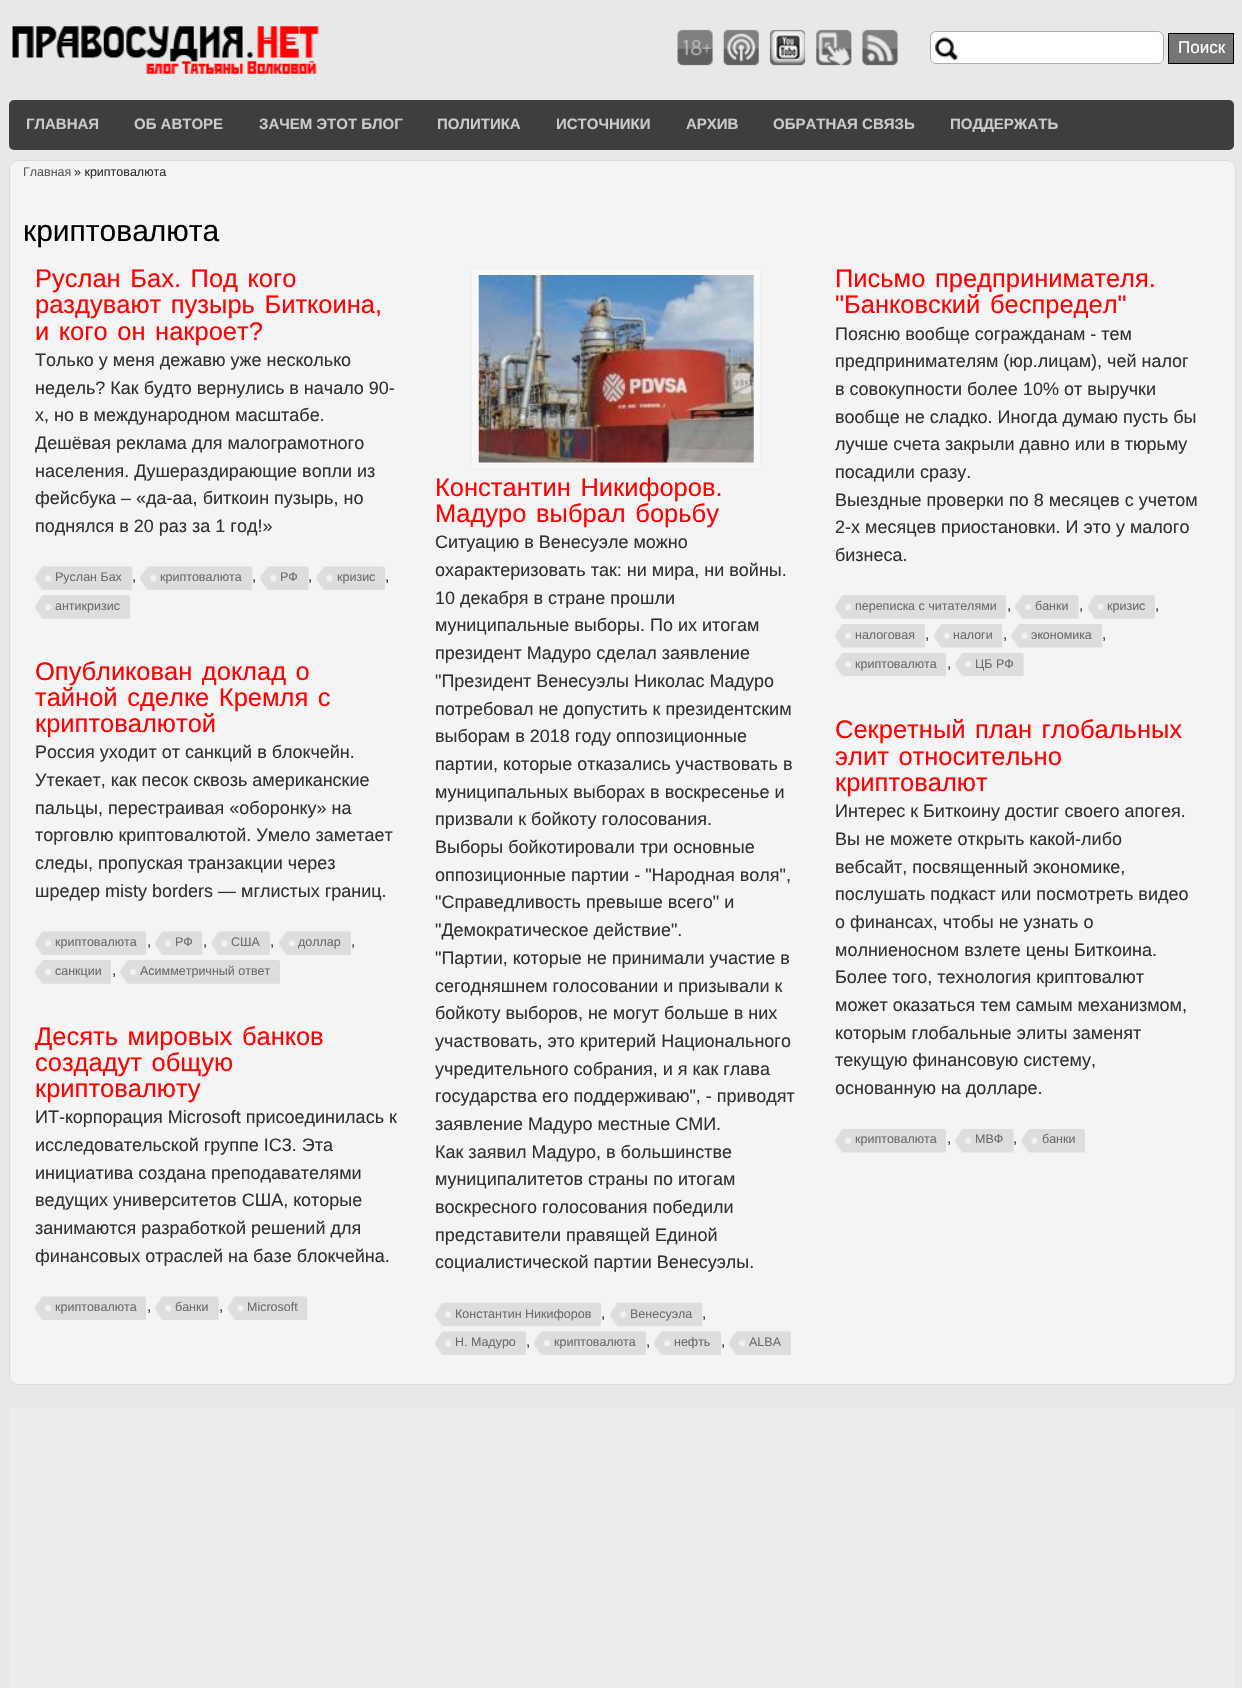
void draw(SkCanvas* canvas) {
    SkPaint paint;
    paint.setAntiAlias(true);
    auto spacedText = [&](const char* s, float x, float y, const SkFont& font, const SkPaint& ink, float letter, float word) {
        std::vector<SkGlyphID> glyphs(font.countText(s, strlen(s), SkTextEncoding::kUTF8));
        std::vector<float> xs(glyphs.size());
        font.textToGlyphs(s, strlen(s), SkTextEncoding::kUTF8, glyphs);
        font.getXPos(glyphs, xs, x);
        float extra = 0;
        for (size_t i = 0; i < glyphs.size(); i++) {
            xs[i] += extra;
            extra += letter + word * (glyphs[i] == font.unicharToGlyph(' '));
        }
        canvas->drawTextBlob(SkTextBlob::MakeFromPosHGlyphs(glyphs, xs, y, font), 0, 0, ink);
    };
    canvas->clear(0xFFE8E8E8);
    canvas->drawImageRect(SkImages::DeferredFromEncodedData(SkData::MakeFromFileName("img1.png")), SkRect::MakeXYWH(12, 25, 307, 49), SkSamplingOptions());
    canvas->drawImageRect(SkImages::DeferredFromEncodedData(SkData::MakeFromFileName("img2.png")), SkRect::MakeXYWH(677, 29, 36, 37), SkSamplingOptions());
    canvas->drawImageRect(SkImages::DeferredFromEncodedData(SkData::MakeFromFileName("img3.png")), SkRect::MakeXYWH(723, 29, 36, 37), SkSamplingOptions());
    canvas->drawImageRect(SkImages::DeferredFromEncodedData(SkData::MakeFromFileName("img4.png")), SkRect::MakeXYWH(769, 29, 37, 37), SkSamplingOptions());
    canvas->drawImageRect(SkImages::DeferredFromEncodedData(SkData::MakeFromFileName("img5.png")), SkRect::MakeXYWH(816, 29, 36, 37), SkSamplingOptions());
    canvas->drawImageRect(SkImages::DeferredFromEncodedData(SkData::MakeFromFileName("img6.png")), SkRect::MakeXYWH(862, 29, 36, 37), SkSamplingOptions());
    paint.setColor(0xFFFFFFFF);
    canvas->drawRoundRect(SkRect::MakeXYWH(930, 31, 234, 33), 6, 6, paint);
    canvas->drawImageRect(SkImages::DeferredFromEncodedData(SkData::MakeFromFileName("img7.png")), SkRect::MakeXYWH(935, 37, 23, 23), SkSamplingOptions());
    paint.setStyle(SkPaint::kStroke_Style);
    paint.setStrokeWidth(1);
    paint.setColor(0xFFACACAC);
    canvas->drawRoundRect(SkRect::MakeXYWH(930.5f, 31.5f, 233, 32), 5.5f, 5.5f, paint);
    paint.setStyle(SkPaint::kFill_Style);
    paint.setColor(0xFF767676);
    canvas->drawRect(SkRect::MakeXYWH(1168.5f, 33.5f, 65, 30), paint);
    paint.setStyle(SkPaint::kStroke_Style);
    paint.setColor(0xFF000000);
    canvas->drawRect(SkRect::MakeXYWH(1168.5f, 33.5f, 65, 30), paint);
    SkFont font1(fontMgr->matchFamilyStyle("Liberation Sans", SkFontStyle::Normal()), 17);
    font1.setSubpixel(true);
    paint.setStyle(SkPaint::kFill_Style);
    paint.setColor(0xFFFFFFFF);
    canvas->drawString("Поиск", 1178, 53, font1, paint);
    paint.setColor(0xFF3E3E3E);
    canvas->drawRoundRect(SkRect::MakeXYWH(9, 100, 1225, 50), 5, 5, paint);
    SkFont font2(fontMgr->matchFamilyStyle("Liberation Sans", SkFontStyle::Bold()), 15);
    font2.setSubpixel(true);
    paint.setColor(0xFFCACACA);
    canvas->drawString("ГЛАВНАЯ", 26, 129, font2, paint);
    canvas->drawString("ОБ АВТОРЕ", 134, 129, font2, paint);
    canvas->drawString("ЗАЧЕМ ЭТОТ БЛОГ", 259, 129, font2, paint);
    canvas->drawString("ПОЛИТИКА", 437, 129, font2, paint);
    canvas->drawString("ИСТОЧНИКИ", 556, 129, font2, paint);
    canvas->drawString("АРХИВ", 686, 129, font2, paint);
    canvas->drawString("ОБРАТНАЯ СВЯЗЬ", 773, 129, font2, paint);
    canvas->drawString("ПОДДЕРЖАТЬ", 950, 129, font2, paint);
    paint.setColor(0xFFF4F4F4);
    canvas->drawRoundRect(SkRect::MakeXYWH(9.5f, 160.5f, 1226, 1224), 8.5f, 8.5f, paint);
    paint.setStyle(SkPaint::kStroke_Style);
    paint.setColor(0xFFDBDBDB);
    canvas->drawRoundRect(SkRect::MakeXYWH(9.5f, 160.5f, 1226, 1224), 8.5f, 8.5f, paint);
    SkFont font3(fontMgr->matchFamilyStyle("Liberation Sans", SkFontStyle::Normal()), 12.5f);
    font3.setSubpixel(true);
    paint.setStyle(SkPaint::kFill_Style);
    paint.setColor(0xFF585858);
    canvas->drawString("Главная", 23, 176, font3, paint);
    paint.setColor(0xFF323232);
    canvas->drawString("» криптовалюта", 74, 176, font3, paint);
    SkFont font4(fontMgr->matchFamilyStyle("Liberation Sans", SkFontStyle::Normal()), 30);
    font4.setSubpixel(true);
    paint.setColor(0xFF000000);
    canvas->drawString("криптовалюта", 23, 241, font4, paint);
    SkFont font5(fontMgr->matchFamilyStyle("Liberation Sans", SkFontStyle::Normal()), 25.5f);
    font5.setSubpixel(true);
    paint.setColor(0xFFFF0101);
    spacedText("Руслан Бах. Под кого", 35, 287, font5, paint, 0, 2.5f);
    spacedText("раздувают пузырь Биткоина,", 35, 313, font5, paint, 0, 2.5f);
    spacedText("и кого он накроет?", 35, 340, font5, paint, 0, 2.5f);
    SkFont font6(fontMgr->matchFamilyStyle("Liberation Sans", SkFontStyle::Normal()), 18);
    font6.setSubpixel(true);
    paint.setColor(0xFF323232);
    canvas->drawString("Только у меня дежавю уже несколько", 35, 366, font6, paint);
    canvas->drawString("недель? Как будто вернулись в начало 90-", 35, 394, font6, paint);
    canvas->drawString("х, но в международном масштабе.", 35, 421, font6, paint);
    canvas->drawString("Дешёвая реклама для малограмотного", 35, 449, font6, paint);
    canvas->drawString("населения. Душераздирающие вопли из", 35, 477, font6, paint);
    canvas->drawString("фейсбука – «да-аа, биткоин пузырь, но", 35, 504, font6, paint);
    canvas->drawString("поднялся в 20 раз за 1 год!»", 35, 532, font6, paint);
    canvas->drawImageRect(SkImages::DeferredFromEncodedData(SkData::MakeFromFileName("img8.png")), SkRect::MakeXYWH(35, 566, 98, 24), SkSamplingOptions());
    paint.setColor(0xFF6C6C6C);
    canvas->drawString("Руслан Бах", 55, 581, font3, paint);
    SkFont font7(fontMgr->matchFamilyStyle("Liberation Sans", SkFontStyle::Normal()), 15);
    font7.setSubpixel(true);
    paint.setColor(0xFF323232);
    canvas->drawString(",", 132, 581, font7, paint);
    canvas->drawImageRect(SkImages::DeferredFromEncodedData(SkData::MakeFromFileName("img9.png")), SkRect::MakeXYWH(140, 566, 113, 24), SkSamplingOptions());
    paint.setColor(0xFF6C6C6C);
    canvas->drawString("криптовалюта", 160, 581, font3, paint);
    paint.setColor(0xFF323232);
    canvas->drawString(",", 252, 581, font7, paint);
    canvas->drawImageRect(SkImages::DeferredFromEncodedData(SkData::MakeFromFileName("img10.png")), SkRect::MakeXYWH(260, 566, 49, 24), SkSamplingOptions());
    paint.setColor(0xFF6C6C6C);
    canvas->drawString("РФ", 280, 581, font3, paint);
    paint.setColor(0xFF323232);
    canvas->drawString(",", 308, 581, font7, paint);
    canvas->drawImageRect(SkImages::DeferredFromEncodedData(SkData::MakeFromFileName("img11.png")), SkRect::MakeXYWH(316, 566, 69, 24), SkSamplingOptions());
    paint.setColor(0xFF6C6C6C);
    canvas->drawString("кризис", 337, 581, font3, paint);
    paint.setColor(0xFF323232);
    canvas->drawString(",", 385, 581, font7, paint);
    canvas->drawImageRect(SkImages::DeferredFromEncodedData(SkData::MakeFromFileName("img12.png")), SkRect::MakeXYWH(35, 595, 95, 24), SkSamplingOptions());
    paint.setColor(0xFF6C6C6C);
    canvas->drawString("антикризис", 55, 610, font3, paint);
    paint.setColor(0xFFF8F8F8);
    canvas->drawRect(SkRect::MakeXYWH(471.5f, 268.5f, 289, 201), paint);
    paint.setStyle(SkPaint::kStroke_Style);
    paint.setColor(0xFFEFEFEF);
    canvas->drawRect(SkRect::MakeXYWH(471.5f, 268.5f, 289, 201), paint);
    canvas->drawImageRect(SkImages::DeferredFromEncodedData(SkData::MakeFromFileName("img13.png")), SkRect::MakeXYWH(478, 275, 276, 188), SkSamplingOptions());
    paint.setStyle(SkPaint::kFill_Style);
    paint.setColor(0xFFFF0101);
    spacedText("Константин Никифоров.", 435, 496, font5, paint, 0, 2.5f);
    spacedText("Мадуро выбрал борьбу", 435, 522, font5, paint, 0, 2.5f);
    paint.setColor(0xFF323232);
    canvas->drawString("Ситуацию в Венесуэле можно", 435, 548, font6, paint);
    canvas->drawString("охарактеризовать так: ни мира, ни войны.", 435, 576, font6, paint);
    canvas->drawString("10 декабря в стране прошли", 435, 604, font6, paint);
    canvas->drawString("муниципальные выборы. По их итогам", 435, 631, font6, paint);
    canvas->drawString("президент Мадуро сделал заявление", 435, 659, font6, paint);
    canvas->drawString("\"Президент Венесуэлы Николас Мадуро", 435, 687, font6, paint);
    canvas->drawString("потребовал не допустить к президентским", 435, 715, font6, paint);
    canvas->drawString("выборам в 2018 году оппозиционные", 435, 742, font6, paint);
    canvas->drawString("партии, которые отказались участвовать в", 435, 770, font6, paint);
    canvas->drawString("муниципальных выборах в воскресенье и", 435, 798, font6, paint);
    canvas->drawString("призвали к бойкоту голосования.", 435, 825, font6, paint);
    canvas->drawString("Выборы бойкотировали три основные", 435, 853, font6, paint);
    canvas->drawString("оппозиционные партии - \"Народная воля\",", 435, 881, font6, paint);
    canvas->drawString("\"Справедливость превыше всего\" и", 435, 908, font6, paint);
    canvas->drawString("\"Демократическое действие\".", 435, 936, font6, paint);
    canvas->drawString("\"Партии, которые не принимали участие в", 435, 964, font6, paint);
    canvas->drawString("сегодняшнем голосовании и призывали к", 435, 992, font6, paint);
    canvas->drawString("бойкоту выборов, не могут больше в них", 435, 1019, font6, paint);
    canvas->drawString("участвовать, это критерий Национального", 435, 1047, font6, paint);
    canvas->drawString("учредительного собрания, и я как глава", 435, 1075, font6, paint);
    canvas->drawString("государства его поддерживаю\", - приводят", 435, 1102, font6, paint);
    canvas->drawString("заявление Мадуро местные СМИ.", 435, 1130, font6, paint);
    canvas->drawString("Как заявил Мадуро, в большинстве", 435, 1158, font6, paint);
    canvas->drawString("муниципалитетов страны по итогам", 435, 1185, font6, paint);
    canvas->drawString("воскресного голосования победили", 435, 1213, font6, paint);
    canvas->drawString("представители правящей Единой", 435, 1241, font6, paint);
    canvas->drawString("социалистической партии Венесуэлы.", 435, 1268, font6, paint);
    canvas->drawImageRect(SkImages::DeferredFromEncodedData(SkData::MakeFromFileName("img14.png")), SkRect::MakeXYWH(435, 1302, 166, 25), SkSamplingOptions());
    paint.setColor(0xFF6C6C6C);
    canvas->drawString("Константин Никифоров", 455, 1318, font3, paint);
    paint.setColor(0xFF323232);
    canvas->drawString(",", 601, 1318, font7, paint);
    canvas->drawImageRect(SkImages::DeferredFromEncodedData(SkData::MakeFromFileName("img15.png")), SkRect::MakeXYWH(610, 1302, 93, 25), SkSamplingOptions());
    paint.setColor(0xFF6C6C6C);
    canvas->drawString("Венесуэла", 630, 1318, font3, paint);
    paint.setColor(0xFF323232);
    canvas->drawString(",", 702, 1318, font7, paint);
    canvas->drawImageRect(SkImages::DeferredFromEncodedData(SkData::MakeFromFileName("img16.png")), SkRect::MakeXYWH(435, 1331, 91, 24), SkSamplingOptions());
    paint.setColor(0xFF6C6C6C);
    canvas->drawString("Н. Мадуро", 455, 1346, font3, paint);
    paint.setColor(0xFF323232);
    canvas->drawString(",", 526, 1346, font7, paint);
    canvas->drawImageRect(SkImages::DeferredFromEncodedData(SkData::MakeFromFileName("img17.png")), SkRect::MakeXYWH(534, 1331, 112, 24), SkSamplingOptions());
    paint.setColor(0xFF6C6C6C);
    canvas->drawString("криптовалюта", 554, 1346, font3, paint);
    paint.setColor(0xFF323232);
    canvas->drawString(",", 646, 1346, font7, paint);
    canvas->drawImageRect(SkImages::DeferredFromEncodedData(SkData::MakeFromFileName("img18.png")), SkRect::MakeXYWH(654, 1331, 67, 24), SkSamplingOptions());
    paint.setColor(0xFF6C6C6C);
    canvas->drawString("нефть", 674, 1346, font3, paint);
    paint.setColor(0xFF323232);
    canvas->drawString(",", 721, 1346, font7, paint);
    canvas->drawImageRect(SkImages::DeferredFromEncodedData(SkData::MakeFromFileName("img19.png")), SkRect::MakeXYWH(729, 1331, 62, 24), SkSamplingOptions());
    paint.setColor(0xFF6C6C6C);
    canvas->drawString("ALBA", 749, 1346, font3, paint);
    paint.setColor(0xFFFF0101);
    spacedText("Письмо предпринимателя.", 835, 287, font5, paint, 0, 2.5f);
    spacedText("\"Банковский беспредел\"", 835, 313, font5, paint, 0, 2.5f);
    paint.setColor(0xFF323232);
    canvas->drawString("Поясню вообще согражданам - тем", 835, 340, font6, paint);
    canvas->drawString("предпринимателям (юр.лицам), чей налог", 835, 367, font6, paint);
    canvas->drawString("в совокупности более 10% от выручки", 835, 395, font6, paint);
    canvas->drawString("вообще не сладко. Иногда думаю пусть бы", 835, 423, font6, paint);
    canvas->drawString("лучше счета закрыли давно или в тюрьму", 835, 450, font6, paint);
    canvas->drawString("посадили сразу.", 835, 478, font6, paint);
    canvas->drawString("Выездные проверки по 8 месяцев с учетом", 835, 506, font6, paint);
    canvas->drawString("2-х месяцев приостановки. И это у малого", 835, 533, font6, paint);
    canvas->drawString("бизнеса.", 835, 561, font6, paint);
    canvas->drawImageRect(SkImages::DeferredFromEncodedData(SkData::MakeFromFileName("img20.png")), SkRect::MakeXYWH(835, 595, 171, 24), SkSamplingOptions());
    paint.setColor(0xFF6C6C6C);
    canvas->drawString("переписка с читателями", 855, 610, font3, paint);
    paint.setColor(0xFF323232);
    canvas->drawString(",", 1007, 610, font7, paint);
    canvas->drawImageRect(SkImages::DeferredFromEncodedData(SkData::MakeFromFileName("img21.png")), SkRect::MakeXYWH(1015, 595, 64, 24), SkSamplingOptions());
    paint.setColor(0xFF6C6C6C);
    canvas->drawString("банки", 1035, 610, font3, paint);
    paint.setColor(0xFF323232);
    canvas->drawString(",", 1079, 610, font7, paint);
    canvas->drawImageRect(SkImages::DeferredFromEncodedData(SkData::MakeFromFileName("img22.png")), SkRect::MakeXYWH(1087, 595, 68, 24), SkSamplingOptions());
    paint.setColor(0xFF6C6C6C);
    canvas->drawString("кризис", 1107, 610, font3, paint);
    paint.setColor(0xFF323232);
    canvas->drawString(",", 1155, 610, font7, paint);
    canvas->drawImageRect(SkImages::DeferredFromEncodedData(SkData::MakeFromFileName("img23.png")), SkRect::MakeXYWH(835, 624, 90, 24), SkSamplingOptions());
    paint.setColor(0xFF6C6C6C);
    canvas->drawString("налоговая", 855, 639, font3, paint);
    paint.setColor(0xFF323232);
    canvas->drawString(",", 925, 639, font7, paint);
    canvas->drawImageRect(SkImages::DeferredFromEncodedData(SkData::MakeFromFileName("img24.png")), SkRect::MakeXYWH(934, 624, 69, 24), SkSamplingOptions());
    paint.setColor(0xFF6C6C6C);
    canvas->drawString("налоги", 953, 639, font3, paint);
    paint.setColor(0xFF323232);
    canvas->drawString(",", 1003, 639, font7, paint);
    canvas->drawImageRect(SkImages::DeferredFromEncodedData(SkData::MakeFromFileName("img25.png")), SkRect::MakeXYWH(1011, 624, 92, 24), SkSamplingOptions());
    paint.setColor(0xFF6C6C6C);
    canvas->drawString("экономика", 1031, 639, font3, paint);
    paint.setColor(0xFF323232);
    canvas->drawString(",", 1102, 639, font7, paint);
    canvas->drawImageRect(SkImages::DeferredFromEncodedData(SkData::MakeFromFileName("img26.png")), SkRect::MakeXYWH(835, 652, 111, 25), SkSamplingOptions());
    paint.setColor(0xFF6C6C6C);
    canvas->drawString("криптовалюта", 855, 668, font3, paint);
    paint.setColor(0xFF323232);
    canvas->drawString(",", 947, 668, font7, paint);
    canvas->drawImageRect(SkImages::DeferredFromEncodedData(SkData::MakeFromFileName("img27.png")), SkRect::MakeXYWH(955, 652, 69, 25), SkSamplingOptions());
    paint.setColor(0xFF6C6C6C);
    canvas->drawString("ЦБ РФ", 975, 668, font3, paint);
    paint.setColor(0xFFFF0101);
    spacedText("Опубликован доклад о", 35, 680, font5, paint, 0, 2.5f);
    spacedText("тайной сделке Кремля с", 35, 706, font5, paint, 0, 2.5f);
    canvas->drawString("криптовалютой", 35, 732, font5, paint);
    paint.setColor(0xFF323232);
    canvas->drawString("Россия уходит от санкций в блокчейн.", 35, 758, font6, paint);
    canvas->drawString("Утекает, как песок сквозь американские", 35, 786, font6, paint);
    canvas->drawString("пальцы, перестраивая «оборонку» на", 35, 814, font6, paint);
    canvas->drawString("торговлю криптовалютой. Умело заметает", 35, 841, font6, paint);
    canvas->drawString("следы, пропуская транзакции через", 35, 869, font6, paint);
    canvas->drawString("шредер misty borders — мглистых границ.", 35, 897, font6, paint);
    canvas->drawImageRect(SkImages::DeferredFromEncodedData(SkData::MakeFromFileName("img28.png")), SkRect::MakeXYWH(35, 931, 111, 24), SkSamplingOptions());
    paint.setColor(0xFF6C6C6C);
    canvas->drawString("криптовалюта", 55, 946, font3, paint);
    paint.setColor(0xFF323232);
    canvas->drawString(",", 147, 946, font7, paint);
    canvas->drawImageRect(SkImages::DeferredFromEncodedData(SkData::MakeFromFileName("img29.png")), SkRect::MakeXYWH(155, 931, 48, 24), SkSamplingOptions());
    paint.setColor(0xFF6C6C6C);
    canvas->drawString("РФ", 175, 946, font3, paint);
    paint.setColor(0xFF323232);
    canvas->drawString(",", 203, 946, font7, paint);
    canvas->drawImageRect(SkImages::DeferredFromEncodedData(SkData::MakeFromFileName("img30.png")), SkRect::MakeXYWH(211, 931, 59, 24), SkSamplingOptions());
    paint.setColor(0xFF6C6C6C);
    canvas->drawString("США", 231, 946, font3, paint);
    paint.setColor(0xFF323232);
    canvas->drawString(",", 270, 946, font7, paint);
    canvas->drawImageRect(SkImages::DeferredFromEncodedData(SkData::MakeFromFileName("img31.png")), SkRect::MakeXYWH(279, 931, 72, 24), SkSamplingOptions());
    paint.setColor(0xFF6C6C6C);
    canvas->drawString("доллар", 298, 946, font3, paint);
    paint.setColor(0xFF323232);
    canvas->drawString(",", 351, 946, font7, paint);
    canvas->drawImageRect(SkImages::DeferredFromEncodedData(SkData::MakeFromFileName("img32.png")), SkRect::MakeXYWH(35, 960, 76, 24), SkSamplingOptions());
    paint.setColor(0xFF6C6C6C);
    canvas->drawString("санкции", 55, 975, font3, paint);
    paint.setColor(0xFF323232);
    canvas->drawString(",", 112, 975, font7, paint);
    canvas->drawImageRect(SkImages::DeferredFromEncodedData(SkData::MakeFromFileName("img33.png")), SkRect::MakeXYWH(120, 960, 160, 24), SkSamplingOptions());
    paint.setColor(0xFF6C6C6C);
    canvas->drawString("Асимметричный ответ", 140, 975, font3, paint);
    paint.setColor(0xFFFF0101);
    spacedText("Секретный план глобальных", 835, 738, font5, paint, 0, 2.5f);
    spacedText("элит относительно", 835, 765, font5, paint, 0, 2.5f);
    canvas->drawString("криптовалют", 835, 791, font5, paint);
    paint.setColor(0xFF323232);
    canvas->drawString("Интерес к Биткоину достиг своего апогея.", 835, 817, font6, paint);
    canvas->drawString("Вы не можете открыть какой-либо", 835, 845, font6, paint);
    canvas->drawString("вебсайт, посвященный экономике,", 835, 873, font6, paint);
    canvas->drawString("послушать подкаст или посмотреть видео", 835, 900, font6, paint);
    canvas->drawString("о финансах, чтобы не узнать о", 835, 928, font6, paint);
    canvas->drawString("молниеносном взлете цены Биткоина.", 835, 956, font6, paint);
    canvas->drawString("Более того, технология криптовалют", 835, 983, font6, paint);
    canvas->drawString("может оказаться тем самым механизмом,", 835, 1011, font6, paint);
    canvas->drawString("которым глобальные элиты заменят", 835, 1039, font6, paint);
    canvas->drawString("текущую финансовую систему,", 835, 1066, font6, paint);
    canvas->drawString("основанную на долларе.", 835, 1094, font6, paint);
    canvas->drawImageRect(SkImages::DeferredFromEncodedData(SkData::MakeFromFileName("img34.png")), SkRect::MakeXYWH(835, 1129, 111, 24), SkSamplingOptions());
    paint.setColor(0xFF6C6C6C);
    canvas->drawString("криптовалюта", 855, 1143, font3, paint);
    paint.setColor(0xFF323232);
    canvas->drawString(",", 947, 1143, font7, paint);
    canvas->drawImageRect(SkImages::DeferredFromEncodedData(SkData::MakeFromFileName("img35.png")), SkRect::MakeXYWH(955, 1129, 59, 24), SkSamplingOptions());
    paint.setColor(0xFF6C6C6C);
    canvas->drawString("МВФ", 975, 1143, font3, paint);
    paint.setColor(0xFF323232);
    canvas->drawString(",", 1013, 1143, font7, paint);
    canvas->drawImageRect(SkImages::DeferredFromEncodedData(SkData::MakeFromFileName("img36.png")), SkRect::MakeXYWH(1021, 1129, 64, 24), SkSamplingOptions());
    paint.setColor(0xFF6C6C6C);
    canvas->drawString("банки", 1042, 1143, font3, paint);
    paint.setColor(0xFFFF0101);
    spacedText("Десять мировых банков", 35, 1045, font5, paint, 0, 2.5f);
    spacedText("создадут общую", 35, 1071, font5, paint, 0, 2.5f);
    canvas->drawString("криптовалюту", 35, 1097, font5, paint);
    paint.setColor(0xFF323232);
    canvas->drawString("ИТ-корпорация Microsoft присоединилась к", 35, 1123, font6, paint);
    canvas->drawString("исследовательской группе IC3. Эта", 35, 1151, font6, paint);
    canvas->drawString("инициатива создана преподавателями", 35, 1179, font6, paint);
    canvas->drawString("ведущих университетов США, которые", 35, 1206, font6, paint);
    canvas->drawString("занимаются разработкой решений для", 35, 1234, font6, paint);
    canvas->drawString("финансовых отраслей на базе блокчейна.", 35, 1262, font6, paint);
    canvas->drawImageRect(SkImages::DeferredFromEncodedData(SkData::MakeFromFileName("img28.png")), SkRect::MakeXYWH(35, 1296, 111, 24), SkSamplingOptions());
    paint.setColor(0xFF6C6C6C);
    canvas->drawString("криптовалюта", 55, 1311, font3, paint);
    paint.setColor(0xFF323232);
    canvas->drawString(",", 147, 1311, font7, paint);
    canvas->drawImageRect(SkImages::DeferredFromEncodedData(SkData::MakeFromFileName("img37.png")), SkRect::MakeXYWH(155, 1296, 64, 24), SkSamplingOptions());
    paint.setColor(0xFF6C6C6C);
    canvas->drawString("банки", 175, 1311, font3, paint);
    paint.setColor(0xFF323232);
    canvas->drawString(",", 219, 1311, font7, paint);
    canvas->drawImageRect(SkImages::DeferredFromEncodedData(SkData::MakeFromFileName("img38.png")), SkRect::MakeXYWH(227, 1296, 81, 24), SkSamplingOptions());
    paint.setColor(0xFF6C6C6C);
    canvas->drawString("Microsoft", 247, 1311, font3, paint);
    paint.setColor(0xFFEDEDEE);
    canvas->drawRect(SkRect::MakeXYWH(9, 1408, 1225, 280), paint);
}
